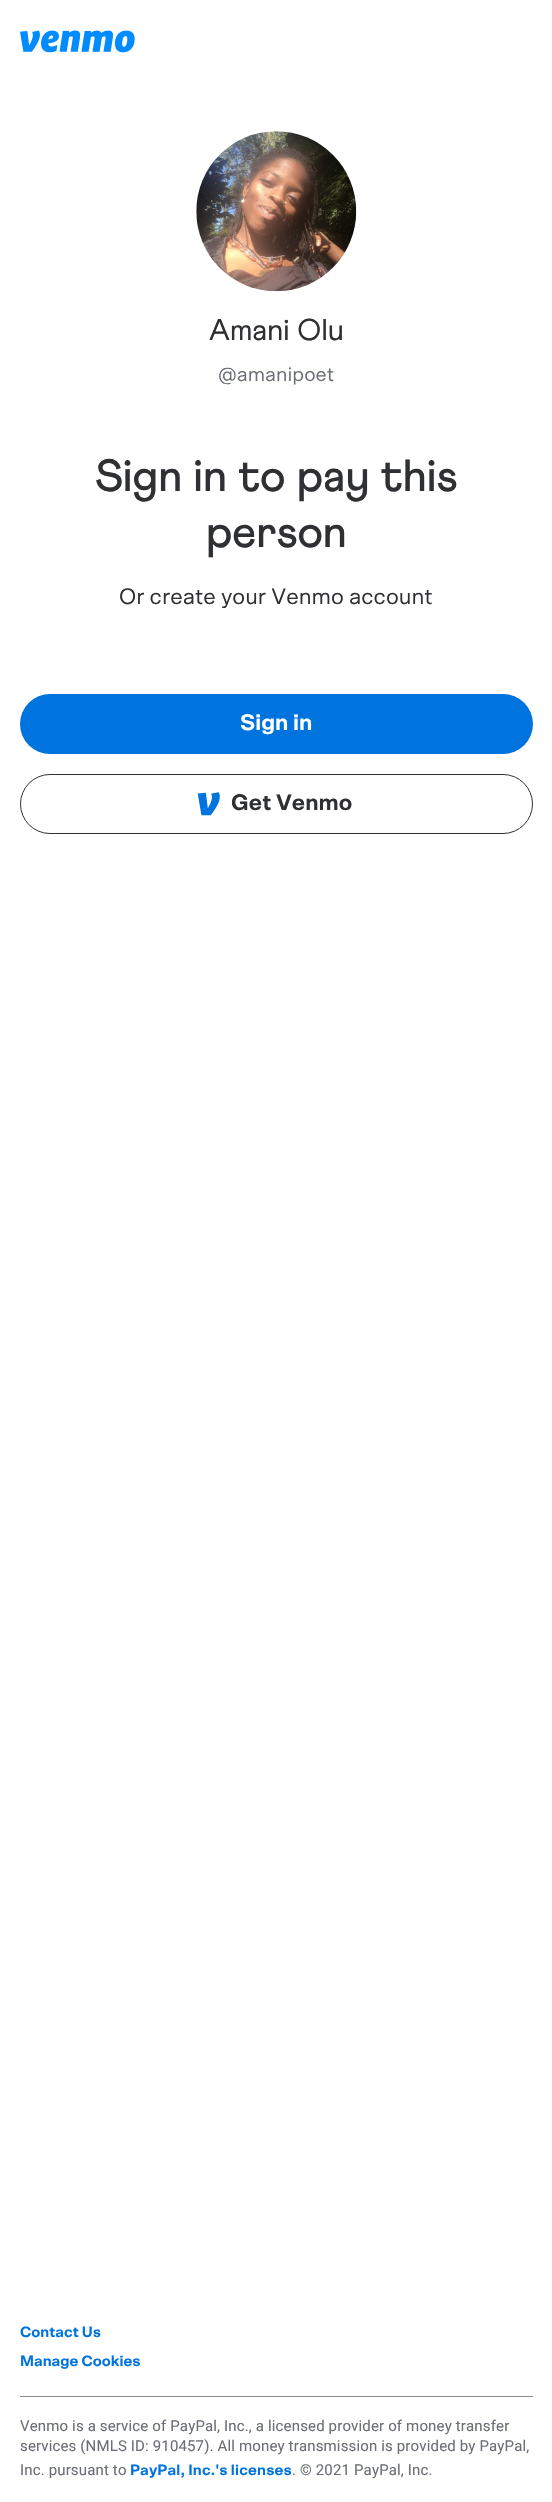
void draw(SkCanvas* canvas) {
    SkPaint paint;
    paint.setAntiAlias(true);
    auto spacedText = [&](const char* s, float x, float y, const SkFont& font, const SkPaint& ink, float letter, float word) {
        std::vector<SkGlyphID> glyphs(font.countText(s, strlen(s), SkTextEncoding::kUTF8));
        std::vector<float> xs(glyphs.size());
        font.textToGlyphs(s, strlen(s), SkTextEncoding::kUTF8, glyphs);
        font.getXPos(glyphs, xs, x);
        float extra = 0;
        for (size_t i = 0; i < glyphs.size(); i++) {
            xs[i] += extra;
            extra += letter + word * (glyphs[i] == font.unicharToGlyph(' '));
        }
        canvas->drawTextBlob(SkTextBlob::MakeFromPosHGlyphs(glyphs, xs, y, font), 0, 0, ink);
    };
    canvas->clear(0xFFFFFFFF);
    canvas->drawImageRect(SkImages::DeferredFromEncodedData(SkData::MakeFromFileName("img1.png")), SkRect::MakeXYWH(20, 30, 115, 23), SkSamplingOptions());
    canvas->drawImageRect(SkImages::DeferredFromEncodedData(SkData::MakeFromFileName("img2.png")), SkRect::MakeXYWH(196, 131, 161, 161), SkSamplingOptions());
    SkFont font1(fontMgr->matchFamilyStyle("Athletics", SkFontStyle::Normal()), 30);
    font1.setSubpixel(true);
    paint.setColor(0xFF2F3033);
    canvas->drawString("Amani Olu", 209, 340, font1, paint);
    SkFont font2(fontMgr->matchFamilyStyle("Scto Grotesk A", SkFontStyle::Normal()), 20);
    font2.setSubpixel(true);
    paint.setColor(0xFF6B6E76);
    canvas->drawString("@amanipoet", 218, 381, font2, paint);
    SkFont font3(fontMgr->matchFamilyStyle("Athletics", SkFontStyle(500, SkFontStyle::kNormal_Width, SkFontStyle::kUpright_Slant)), 45);
    font3.setSubpixel(true);
    paint.setColor(0xFF2F3033);
    canvas->drawString("Sign in to pay this", 95, 491, font3, paint);
    canvas->drawString("person", 206, 547, font3, paint);
    SkFont font4(fontMgr->matchFamilyStyle("Scto Grotesk A", SkFontStyle::Normal()), 22.5f);
    font4.setSubpixel(true);
    canvas->drawString("Or create your Venmo account", 119, 604, font4, paint);
    paint.setColor(0xFF0074DE);
    canvas->drawRoundRect(SkRect::MakeXYWH(20, 694, 513, 60), 30, 30, paint);
    SkFont font5(fontMgr->matchFamilyStyle("Scto Grotesk A", SkFontStyle::Bold()), 22.5f);
    font5.setSubpixel(true);
    paint.setColor(0xFFFFFFFF);
    canvas->drawString("Sign in", 240, 730, font5, paint);
    paint.setStyle(SkPaint::kStroke_Style);
    paint.setStrokeWidth(1);
    paint.setColor(0xFF2F3033);
    canvas->drawRoundRect(SkRect::MakeXYWH(20.5f, 774.5f, 512, 59), 29.5f, 29.5f, paint);
    canvas->drawImageRect(SkImages::DeferredFromEncodedData(SkData::MakeFromFileName("img3.png")), SkRect::MakeXYWH(197, 792, 23, 24), SkSamplingOptions());
    paint.setStyle(SkPaint::kFill_Style);
    canvas->drawString("Get Venmo", 231, 810, font5, paint);
    paint.setColor(0xFF888C94);
    canvas->drawRect(SkRect::MakeXYWH(20, 2396, 513, 1), paint);
    SkFont font6(fontMgr->matchFamilyStyle("Scto Grotesk A", SkFontStyle::Bold()), 15);
    font6.setSubpixel(true);
    paint.setColor(0xFF0074DE);
    canvas->drawString("Contact Us", 20, 2337, font6, paint);
    canvas->drawString("Manage Cookies", 20, 2366, font6, paint);
    SkFont font7(fontMgr->matchFamilyStyle("Roboto", SkFontStyle::Normal()), 15);
    font7.setSubpixel(true);
    paint.setColor(0xFF6B6E76);
    spacedText("Venmo is a service of PayPal, Inc., a licensed provider of money transfer", 20, 2431, font7, paint, 0.15f, 0);
    spacedText("services (NMLS ID: 910457). All money transmission is provided by PayPal,", 20, 2451, font7, paint, 0.15f, 0);
    spacedText("Inc. pursuant to", 20, 2475, font7, paint, 0.15f, 0);
    paint.setColor(0xFF0074DE);
    spacedText("PayPal, Inc.'s licenses", 130, 2475, font6, paint, 0.15f, 0);
    paint.setColor(0xFF6B6E76);
    spacedText(". © 2021 PayPal, Inc.", 292, 2475, font7, paint, 0.15f, 0);
}
